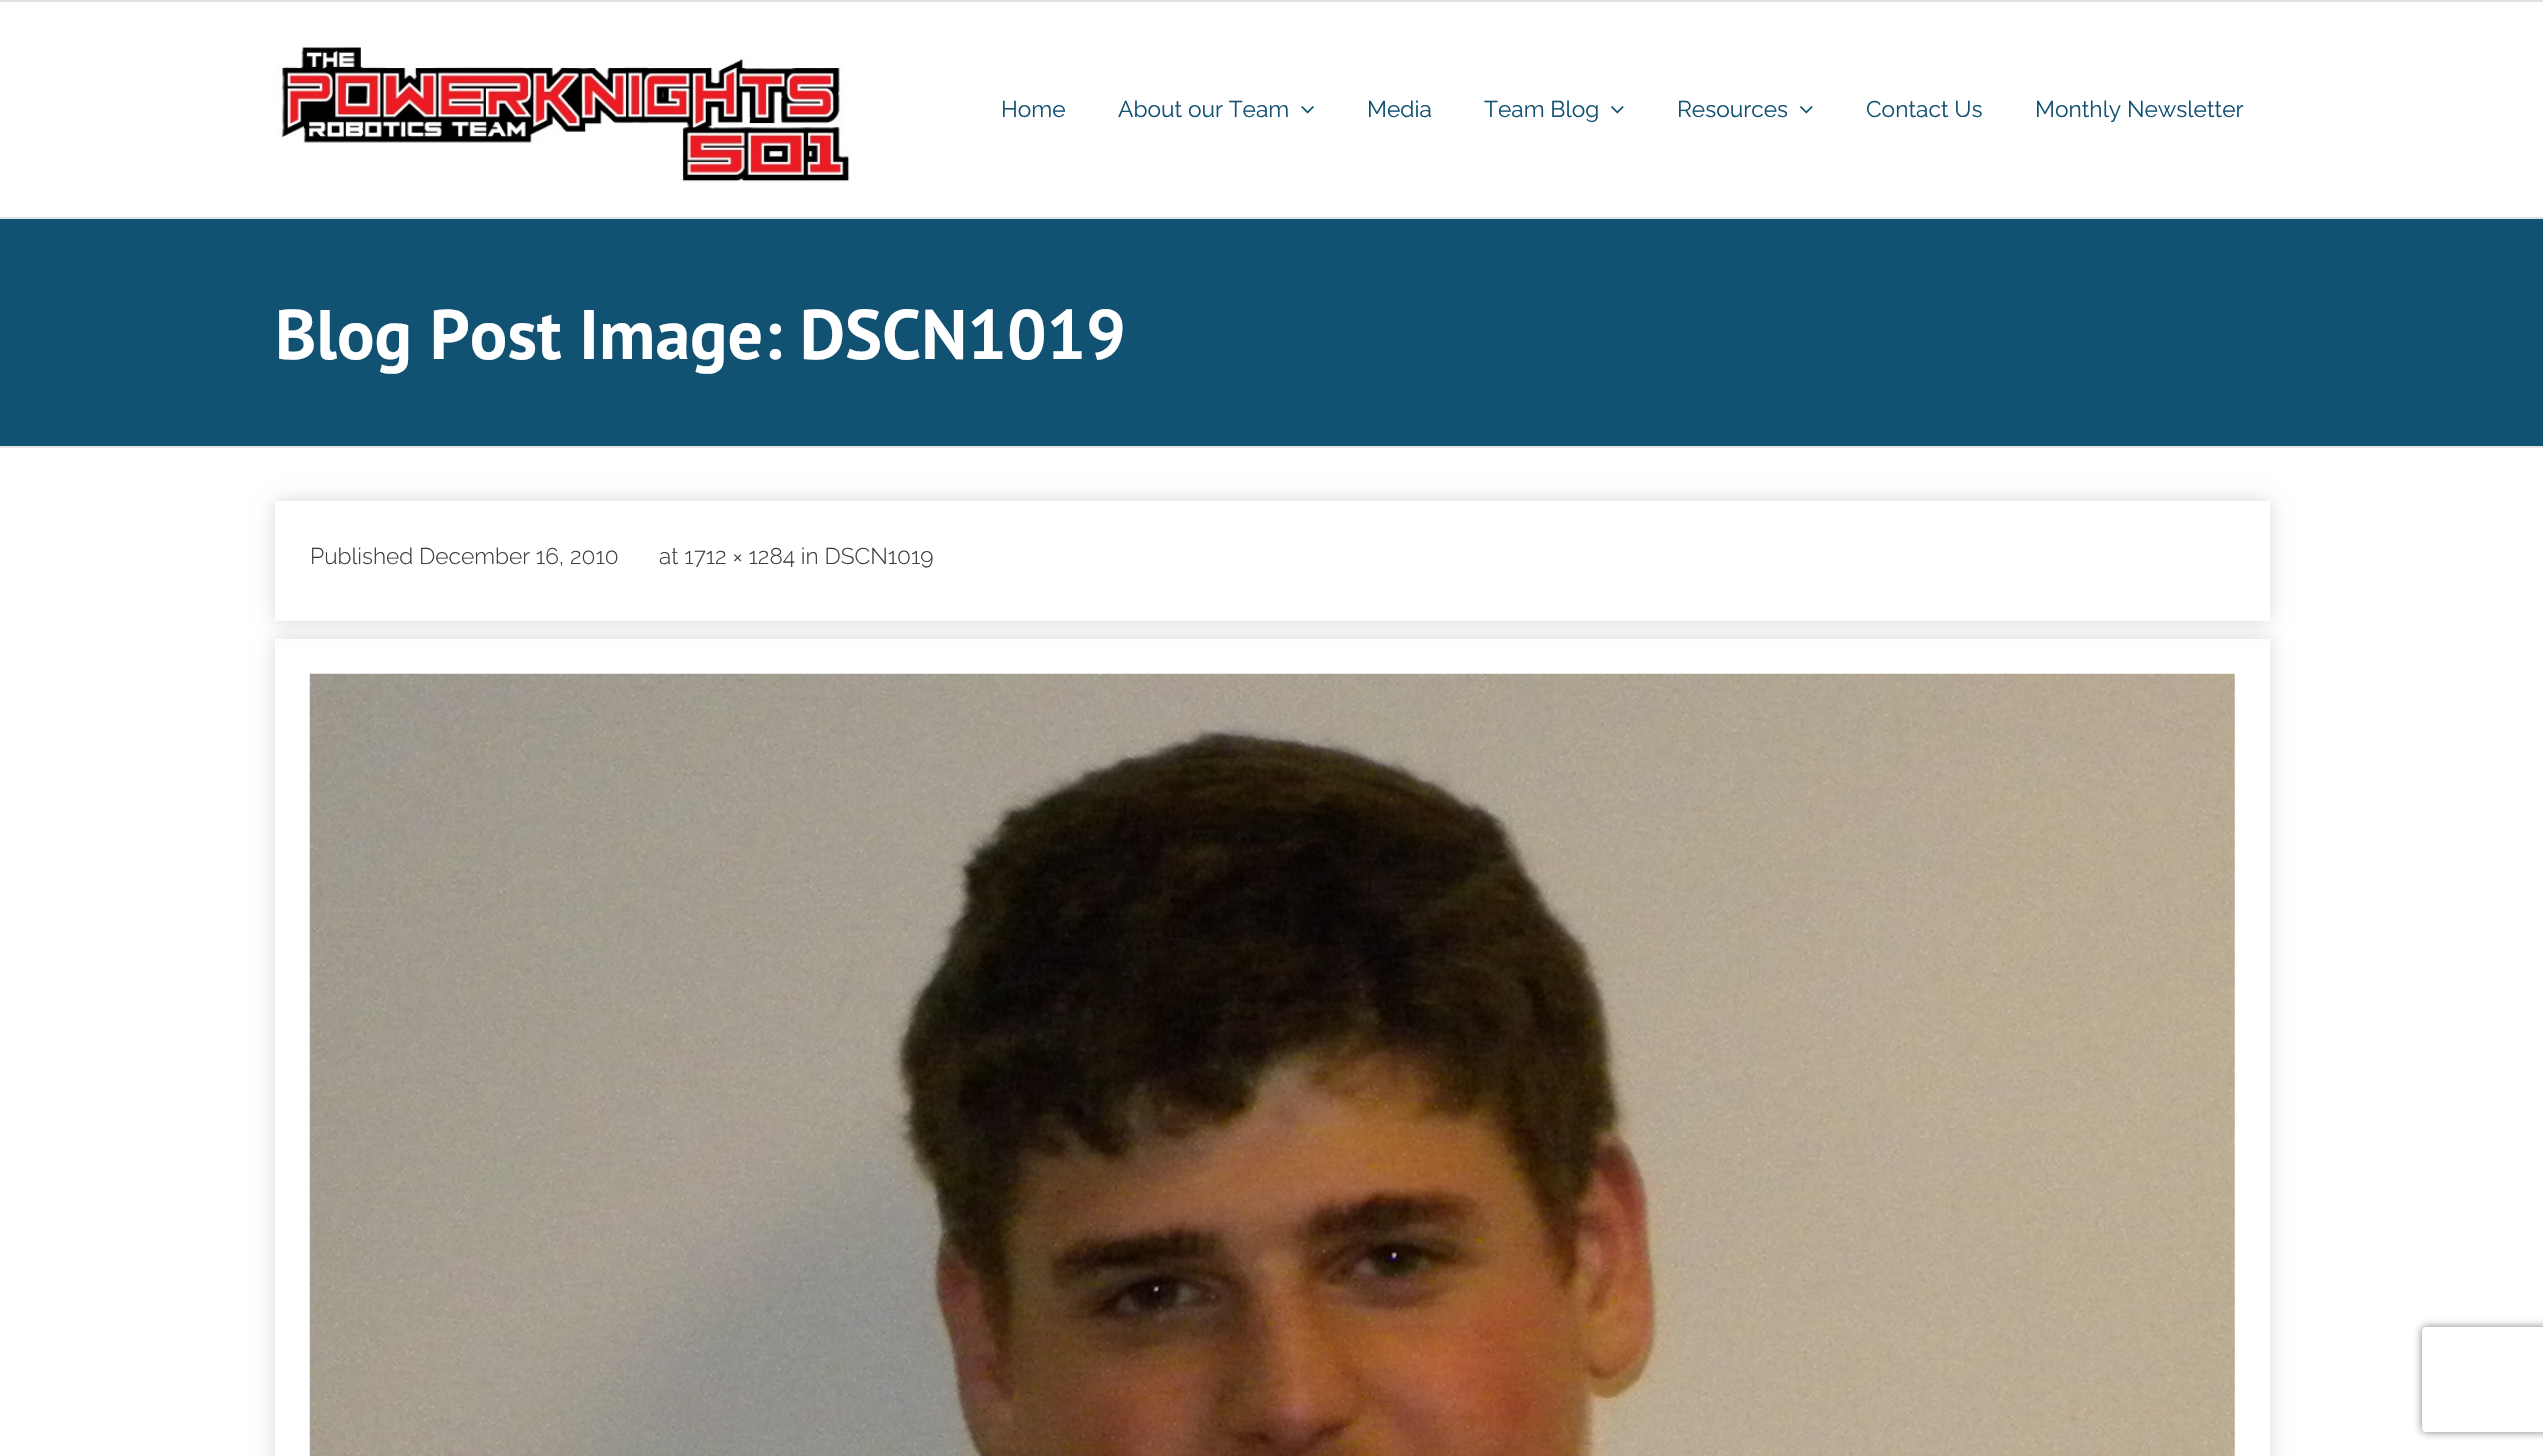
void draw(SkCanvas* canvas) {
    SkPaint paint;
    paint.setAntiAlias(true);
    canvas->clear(0xFFFFFFFF);
    paint.setColor(0xFFE1E1E1);
    canvas->drawRect(SkRect::MakeXYWH(0, 0, 2543, 2), paint);
    canvas->drawRect(SkRect::MakeXYWH(0, 217, 2543, 2), paint);
    canvas->drawImageRect(SkImages::DeferredFromEncodedData(SkData::MakeFromFileName("img1.png")), SkRect::MakeXYWH(275, 47, 576, 135), SkSamplingOptions());
    SkFont font1(fontMgr->matchFamilyStyle("Raleway", SkFontStyle::Normal()), 22.75f);
    font1.setSubpixel(true);
    paint.setColor(0xFF115172);
    canvas->drawString("Home", 1001, 117, font1, paint);
    canvas->drawString("About our Team", 1118, 117, font1, paint);
    canvas->drawImageRect(SkImages::DeferredFromEncodedData(SkData::MakeFromFileName("img2.png")), SkRect::MakeXYWH(1301, 106, 13, 8), SkSamplingOptions());
    canvas->drawString("Media", 1367, 117, font1, paint);
    canvas->drawString("Team Blog", 1484, 117, font1, paint);
    canvas->drawImageRect(SkImages::DeferredFromEncodedData(SkData::MakeFromFileName("img3.png")), SkRect::MakeXYWH(1611, 106, 13, 8), SkSamplingOptions());
    canvas->drawString("Resources", 1677, 117, font1, paint);
    canvas->drawImageRect(SkImages::DeferredFromEncodedData(SkData::MakeFromFileName("img3.png")), SkRect::MakeXYWH(1800, 106, 13, 8), SkSamplingOptions());
    canvas->drawString("Contact Us", 1866, 117, font1, paint);
    canvas->drawString("Monthly Newsletter", 2035, 117, font1, paint);
    canvas->drawRect(SkRect::MakeXYWH(0, 219, 2543, 227), paint);
    paint.setColor(0xFFE5E5E5);
    canvas->drawRect(SkRect::MakeXYWH(0, 446, 2543, 2), paint);
    SkFont font2(fontMgr->matchFamilyStyle("PT Sans", SkFontStyle::Bold()), 70);
    font2.setSubpixel(true);
    paint.setColor(0xFFFFFFFF);
    canvas->drawString("Blog Post Image: DSCN1019", 275, 359, font2, paint);
    canvas->save();
    canvas->clipPath(SkPathBuilder(SkPathFillType::kEvenOdd).moveTo(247, 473).lineTo(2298, 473).lineTo(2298, 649).lineTo(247, 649).close().moveTo(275, 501).lineTo(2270, 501).lineTo(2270, 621).lineTo(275, 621).close().detach(), true);
    paint.setColor(0x26000000);
    paint.setMaskFilter(SkMaskFilter::MakeBlur(kNormal_SkBlurStyle, 9));
    canvas->drawRect(SkRect::MakeXYWH(275, 501, 1995, 120), paint);
    paint.setMaskFilter(nullptr);
    canvas->restore();
    SkFont font3(fontMgr->matchFamilyStyle("Raleway", SkFontStyle(300, SkFontStyle::kNormal_Width, SkFontStyle::kUpright_Slant)), 22.75f);
    font3.setSubpixel(true);
    paint.setColor(0xFF3D3D3D);
    canvas->drawString("Published December 16, 2010", 310, 564, font3, paint);
    canvas->drawString("at 1712 × 1284 in DSCN1019", 659, 564, font3, paint);
    canvas->save();
    canvas->clipPath(SkPathBuilder(SkPathFillType::kEvenOdd).moveTo(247, 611).lineTo(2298, 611).lineTo(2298, 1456).lineTo(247, 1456).close().moveTo(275, 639).lineTo(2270, 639).lineTo(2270, 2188).lineTo(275, 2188).close().detach(), true);
    paint.setColor(0x26000000);
    paint.setMaskFilter(SkMaskFilter::MakeBlur(kNormal_SkBlurStyle, 9));
    canvas->drawRect(SkRect::MakeXYWH(275, 639, 1995, 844), paint);
    paint.setMaskFilter(nullptr);
    canvas->restore();
    canvas->drawImageRect(SkImages::DeferredFromEncodedData(SkData::MakeFromFileName("img4.png")), SkRect::MakeXYWH(309, 673, 1926, 783), SkSamplingOptions());
    canvas->save();
    canvas->clipPath(SkPathBuilder(SkPathFillType::kEvenOdd).moveTo(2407, 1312).lineTo(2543, 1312).lineTo(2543, 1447).lineTo(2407, 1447).close().moveTo(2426, 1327).lineTo(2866, 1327).cubicTo(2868, 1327, 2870, 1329, 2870, 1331).lineTo(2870, 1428).cubicTo(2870, 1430, 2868, 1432, 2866, 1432).lineTo(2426, 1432).cubicTo(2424, 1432, 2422, 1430, 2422, 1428).lineTo(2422, 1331).cubicTo(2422, 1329, 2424, 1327, 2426, 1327).close().detach(), true);
    paint.setColor(0xFF808080);
    paint.setMaskFilter(SkMaskFilter::MakeBlur(kNormal_SkBlurStyle, 4.5f));
    canvas->drawRoundRect(SkRect::MakeXYWH(2422, 1327, 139, 105), 4, 4, paint);
    paint.setMaskFilter(nullptr);
    canvas->restore();
}
